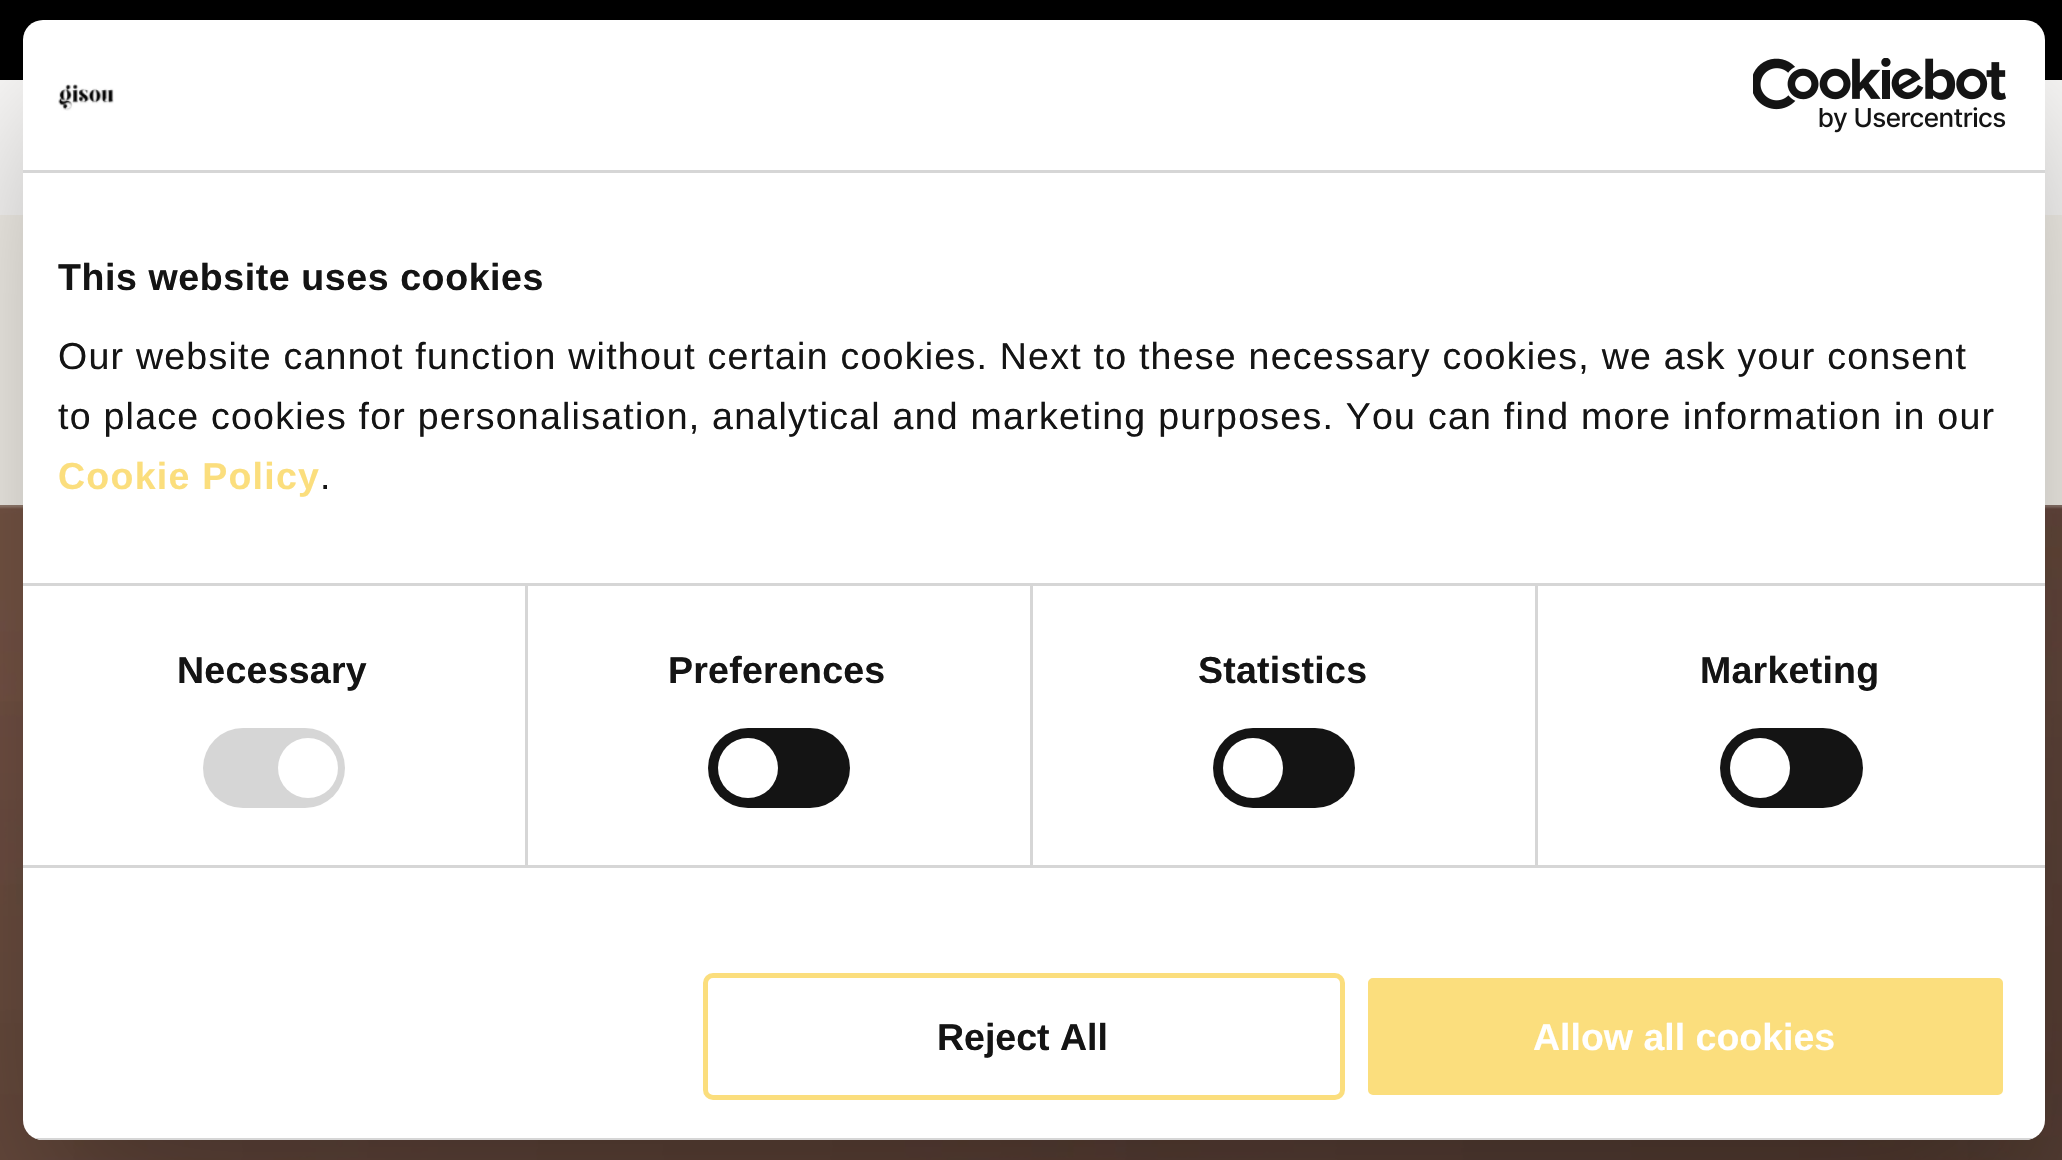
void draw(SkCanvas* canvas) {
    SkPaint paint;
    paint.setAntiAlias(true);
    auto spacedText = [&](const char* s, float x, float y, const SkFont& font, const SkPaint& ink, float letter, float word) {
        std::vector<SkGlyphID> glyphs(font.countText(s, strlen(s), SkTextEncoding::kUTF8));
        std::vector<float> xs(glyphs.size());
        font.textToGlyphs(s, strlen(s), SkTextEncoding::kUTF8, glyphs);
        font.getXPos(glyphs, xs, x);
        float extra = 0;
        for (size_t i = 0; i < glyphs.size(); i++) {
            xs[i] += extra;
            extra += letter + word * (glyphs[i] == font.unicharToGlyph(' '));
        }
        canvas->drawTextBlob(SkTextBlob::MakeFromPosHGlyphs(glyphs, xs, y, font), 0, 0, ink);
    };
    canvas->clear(0xFFF8F5EE);
    paint.setColor(0xFF000000);
    canvas->drawRect(SkRect::MakeXYWH(0, 0, 2062, 80), paint);
    paint.setColor(0xFFFEFDFC);
    canvas->drawRect(SkRect::MakeXYWH(0, 80, 2062, 135), paint);
    canvas->drawImageRect(SkImages::DeferredFromEncodedData(SkData::MakeFromFileName("img1.png")), SkRect::MakeXYWH(0, 505, 2062, 655), SkSamplingOptions());
    {
        const SkColor colors[] = {0x3D000000, 0x00000000};
        const float stops[] = {0, 1};
        const SkPoint ends[] = {{1031, 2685}, {1031, 505}};
        paint.setShader(SkGradientShader::MakeLinear(ends, colors, stops, 2, SkTileMode::kClamp));
        paint.setAlpha(255);
    }
    canvas->drawRect(SkRect::MakeXYWH(0, 701, 2062, 459), paint);
    canvas->save();
    canvas->clipPath(SkPathBuilder(SkPathFillType::kEvenOdd).moveTo(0, 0).lineTo(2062, 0).lineTo(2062, 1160).lineTo(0, 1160).close().moveTo(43, 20).lineTo(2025, 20).cubicTo(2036, 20, 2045, 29, 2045, 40).lineTo(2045, 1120).cubicTo(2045, 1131, 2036, 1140, 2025, 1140).lineTo(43, 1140).cubicTo(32, 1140, 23, 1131, 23, 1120).lineTo(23, 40).cubicTo(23, 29, 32, 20, 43, 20).close().detach(), true);
    paint.setShader(nullptr);
    paint.setColor(0x4D000000);
    paint.setMaskFilter(SkMaskFilter::MakeBlur(kNormal_SkBlurStyle, 85));
    canvas->drawRoundRect(SkRect::MakeXYWH(23, 100, 2022, 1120), 20, 20, paint);
    paint.setMaskFilter(nullptr);
    canvas->restore();
    paint.setColor(0xFFFFFFFF);
    canvas->drawRoundRect(SkRect::MakeXYWH(23, 20, 2022, 1120), 20, 20, paint);
    paint.setColor(0xFFD6D6D6);
    canvas->drawRect(SkRect::MakeXYWH(23, 170, 2022, 3), paint);
    canvas->drawImageRect(SkImages::DeferredFromEncodedData(SkData::MakeFromFileName("img2.png")), SkRect::MakeXYWH(58, 84, 56, 27), SkSamplingOptions());
    canvas->drawImageRect(SkImages::DeferredFromEncodedData(SkData::MakeFromFileName("img3.png")), SkRect::MakeXYWH(1753, 58, 253, 75), SkSamplingOptions());
    canvas->drawRect(SkRect::MakeXYWH(525, 585, 3, 280), paint);
    canvas->drawRect(SkRect::MakeXYWH(1030, 585, 3, 280), paint);
    canvas->drawRect(SkRect::MakeXYWH(1535, 585, 3, 280), paint);
    canvas->drawRect(SkRect::MakeXYWH(23, 583, 2022, 3), paint);
    SkFont font1(fontMgr->matchFamilyStyle("Liberation Sans", SkFontStyle::Bold()), 37.5f);
    font1.setSubpixel(true);
    paint.setColor(0xFF141414);
    spacedText("This website uses cookies", 58, 290, font1, paint, 0.6f, 0);
    SkFont font2(fontMgr->matchFamilyStyle("Liberation Sans", SkFontStyle::Normal()), 37.5f);
    font2.setSubpixel(true);
    spacedText("Our website cannot function without certain cookies. Next to these necessary cookies, we ask your consent", 58, 369, font2, paint, 1.25f, 0);
    spacedText("to place cookies for personalisation, analytical and marketing purposes. You can find more information in our", 58, 429, font2, paint, 1.25f, 0);
    paint.setColor(0xFFFBDE7D);
    spacedText("Cookie Policy", 58, 489, font1, paint, 1.25f, 0);
    paint.setColor(0xFF141414);
    spacedText(".", 320, 489, font2, paint, 1.25f, 0);
    paint.setColor(0xFFD6D6D6);
    canvas->drawRect(SkRect::MakeXYWH(23, 865, 2022, 3), paint);
    paint.setColor(0xFF141414);
    spacedText("Necessary", 177, 683, font1, paint, 0.25f, 0);
    paint.setColor(0xFFD6D6D6);
    canvas->drawRoundRect(SkRect::MakeXYWH(203, 728, 142, 80), 40, 40, paint);
    paint.setColor(0xFFFFFFFF);
    canvas->drawCircle(308, 768, 30, paint);
    paint.setColor(0xFF141414);
    spacedText("Preferences", 668, 683, font1, paint, 0.25f, 0);
    canvas->drawRoundRect(SkRect::MakeXYWH(708, 728, 142, 80), 40, 40, paint);
    paint.setColor(0xFFFFFFFF);
    canvas->drawCircle(748, 768, 30, paint);
    paint.setColor(0xFF141414);
    spacedText("Statistics", 1198, 683, font1, paint, 0.25f, 0);
    canvas->drawRoundRect(SkRect::MakeXYWH(1213, 728, 142, 80), 40, 40, paint);
    paint.setColor(0xFFFFFFFF);
    canvas->drawCircle(1253, 768, 30, paint);
    paint.setColor(0xFF141414);
    spacedText("Marketing", 1700, 683, font1, paint, 0.25f, 0);
    canvas->drawRoundRect(SkRect::MakeXYWH(1720, 728, 143, 80), 40, 40, paint);
    paint.setColor(0xFFFFFFFF);
    canvas->drawCircle(1760, 768, 30, paint);
    canvas->save();
    canvas->clipPath(SkPathBuilder().moveTo(43, 20).lineTo(2025, 20).cubicTo(2036, 20, 2045, 29, 2045, 40).lineTo(2045, 1120).cubicTo(2045, 1131, 2036, 1140, 2025, 1140).lineTo(43, 1140).cubicTo(32, 1140, 23, 1131, 23, 1120).lineTo(23, 40).cubicTo(23, 29, 32, 20, 43, 20).close().detach(), true);
    paint.setColor(0xFFD6D6D6);
    canvas->drawRect(SkRect::MakeXYWH(34, 1138, 2000, 2), paint);
    canvas->restore();
    paint.setStyle(SkPaint::kStroke_Style);
    paint.setStrokeWidth(5);
    paint.setColor(0xFFFBDE7D);
    canvas->drawRoundRect(SkRect::MakeXYWH(705.5f, 975.5f, 637, 122), 7.5f, 7.5f, paint);
    paint.setStyle(SkPaint::kFill_Style);
    paint.setColor(0xFF141414);
    canvas->drawString("Reject All", 937, 1050, font1, paint);
    paint.setColor(0xFFFBDE7D);
    canvas->drawRoundRect(SkRect::MakeXYWH(1365.5f, 975.5f, 640, 122), 7.5f, 7.5f, paint);
    paint.setStyle(SkPaint::kStroke_Style);
    paint.setColor(0xFFFFFFFF);
    canvas->drawRoundRect(SkRect::MakeXYWH(1365.5f, 975.5f, 640, 122), 7.5f, 7.5f, paint);
    paint.setStyle(SkPaint::kFill_Style);
    canvas->drawString("Allow all cookies", 1533, 1050, font1, paint);
}
